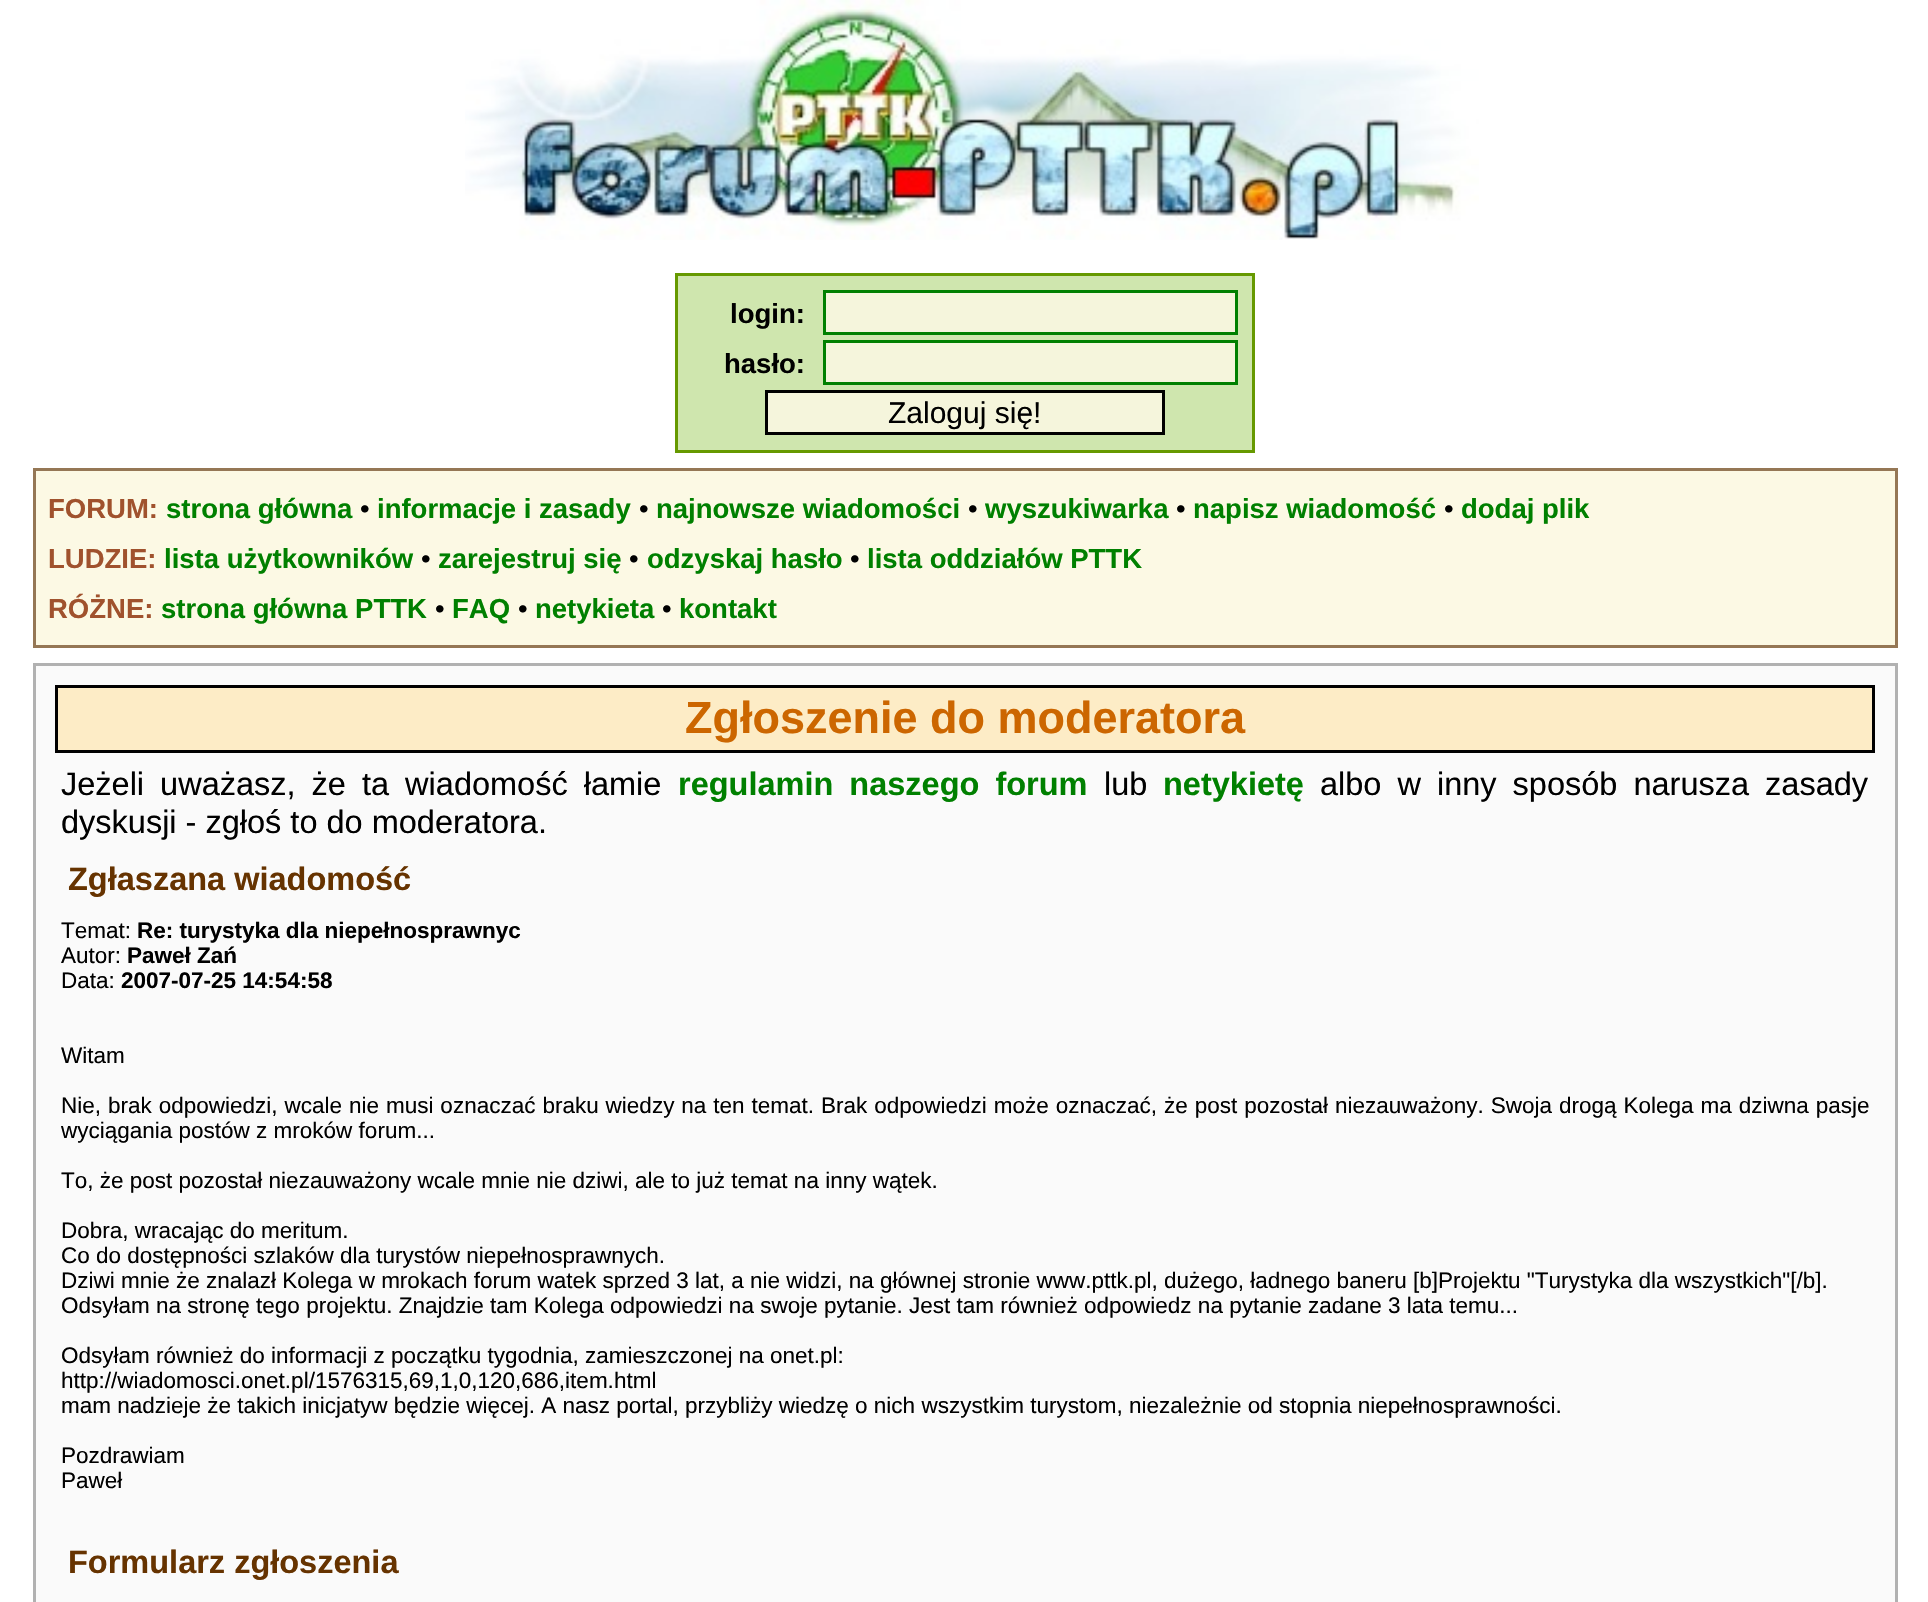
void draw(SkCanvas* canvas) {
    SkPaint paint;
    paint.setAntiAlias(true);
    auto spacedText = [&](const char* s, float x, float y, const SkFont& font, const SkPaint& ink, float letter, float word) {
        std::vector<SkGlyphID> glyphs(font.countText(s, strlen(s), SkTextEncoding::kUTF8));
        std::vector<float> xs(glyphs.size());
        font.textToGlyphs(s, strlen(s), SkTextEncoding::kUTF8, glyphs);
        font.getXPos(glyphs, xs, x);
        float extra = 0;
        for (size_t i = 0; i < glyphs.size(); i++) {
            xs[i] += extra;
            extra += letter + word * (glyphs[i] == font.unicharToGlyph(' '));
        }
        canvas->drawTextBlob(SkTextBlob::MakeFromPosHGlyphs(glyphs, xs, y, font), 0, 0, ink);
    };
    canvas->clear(0xFFFFFFFF);
    canvas->drawImageRect(SkImages::DeferredFromEncodedData(SkData::MakeFromFileName("img1.png")), SkRect::MakeXYWH(465, 0, 1014, 240), SkSamplingOptions());
    paint.setColor(0xFFCFE6AE);
    canvas->drawRect(SkRect::MakeXYWH(676.5f, 274.5f, 577, 177), paint);
    paint.setStyle(SkPaint::kStroke_Style);
    paint.setStrokeWidth(3);
    paint.setColor(0xFF669900);
    canvas->drawRect(SkRect::MakeXYWH(676.5f, 274.5f, 577, 177), paint);
    SkFont font1(fontMgr->matchFamilyStyle("Liberation Sans", SkFontStyle::Bold()), 27.5f);
    font1.setSubpixel(true);
    paint.setStyle(SkPaint::kFill_Style);
    paint.setColor(0xFF000000);
    canvas->drawString("login:", 730, 323, font1, paint);
    paint.setColor(0xFFF5F5DC);
    canvas->drawRect(SkRect::MakeXYWH(824.5f, 291.5f, 412, 42), paint);
    paint.setStyle(SkPaint::kStroke_Style);
    paint.setColor(0xFF008000);
    canvas->drawRect(SkRect::MakeXYWH(824.5f, 291.5f, 412, 42), paint);
    paint.setStyle(SkPaint::kFill_Style);
    paint.setColor(0xFF000000);
    canvas->drawString("hasło:", 724, 373, font1, paint);
    paint.setColor(0xFFF5F5DC);
    canvas->drawRect(SkRect::MakeXYWH(824.5f, 341.5f, 412, 42), paint);
    paint.setStyle(SkPaint::kStroke_Style);
    paint.setColor(0xFF008000);
    canvas->drawRect(SkRect::MakeXYWH(824.5f, 341.5f, 412, 42), paint);
    paint.setStyle(SkPaint::kFill_Style);
    paint.setColor(0xFFF5F5DC);
    canvas->drawRect(SkRect::MakeXYWH(766.5f, 391.5f, 397, 42), paint);
    paint.setStyle(SkPaint::kStroke_Style);
    paint.setColor(0xFF000000);
    canvas->drawRect(SkRect::MakeXYWH(766.5f, 391.5f, 397, 42), paint);
    SkFont font2(fontMgr->matchFamilyStyle("Liberation Sans", SkFontStyle::Normal()), 30);
    font2.setSubpixel(true);
    paint.setStyle(SkPaint::kFill_Style);
    canvas->drawString("Zaloguj się!", 888, 423, font2, paint);
    paint.setColor(0xFFFCF9E4);
    canvas->drawRect(SkRect::MakeXYWH(34.5f, 469.5f, 1862, 177), paint);
    paint.setStyle(SkPaint::kStroke_Style);
    paint.setColor(0xFF957755);
    canvas->drawRect(SkRect::MakeXYWH(34.5f, 469.5f, 1862, 177), paint);
    paint.setStyle(SkPaint::kFill_Style);
    paint.setColor(0xFFA0522D);
    canvas->drawString("FORUM:", 48, 518, font1, paint);
    paint.setColor(0xFF008000);
    canvas->drawString("strona główna", 166, 518, font1, paint);
    SkFont font3(fontMgr->matchFamilyStyle("Liberation Sans", SkFontStyle::Normal()), 27.5f);
    font3.setSubpixel(true);
    paint.setColor(0xFF000000);
    canvas->drawString("•", 360, 518, font3, paint);
    paint.setColor(0xFF008000);
    canvas->drawString("informacje i zasady", 377, 518, font1, paint);
    paint.setColor(0xFF000000);
    canvas->drawString("•", 639, 518, font3, paint);
    paint.setColor(0xFF008000);
    canvas->drawString("najnowsze wiadomości", 656, 518, font1, paint);
    paint.setColor(0xFF000000);
    canvas->drawString("•", 968, 518, font3, paint);
    paint.setColor(0xFF008000);
    canvas->drawString("wyszukiwarka", 985, 518, font1, paint);
    paint.setColor(0xFF000000);
    canvas->drawString("•", 1176, 518, font3, paint);
    paint.setColor(0xFF008000);
    canvas->drawString("napisz wiadomość", 1193, 518, font1, paint);
    paint.setColor(0xFF000000);
    canvas->drawString("•", 1444, 518, font3, paint);
    paint.setColor(0xFF008000);
    canvas->drawString("dodaj plik", 1461, 518, font1, paint);
    paint.setColor(0xFFA0522D);
    canvas->drawString("LUDZIE:", 48, 568, font1, paint);
    paint.setColor(0xFF008000);
    canvas->drawString("lista użytkowników", 164, 568, font1, paint);
    paint.setColor(0xFF000000);
    canvas->drawString("•", 421, 568, font3, paint);
    paint.setColor(0xFF008000);
    canvas->drawString("zarejestruj się", 438, 568, font1, paint);
    paint.setColor(0xFF000000);
    canvas->drawString("•", 629, 568, font3, paint);
    paint.setColor(0xFF008000);
    canvas->drawString("odzyskaj hasło", 647, 568, font1, paint);
    paint.setColor(0xFF000000);
    canvas->drawString("•", 850, 568, font3, paint);
    paint.setColor(0xFF008000);
    canvas->drawString("lista oddziałów PTTK", 867, 568, font1, paint);
    paint.setColor(0xFFA0522D);
    canvas->drawString("RÓŻNE:", 48, 618, font1, paint);
    paint.setColor(0xFF008000);
    canvas->drawString("strona główna PTTK", 161, 618, font1, paint);
    paint.setColor(0xFF000000);
    canvas->drawString("•", 435, 618, font3, paint);
    paint.setColor(0xFF008000);
    canvas->drawString("FAQ", 452, 618, font1, paint);
    paint.setColor(0xFF000000);
    canvas->drawString("•", 518, 618, font3, paint);
    paint.setColor(0xFF008000);
    canvas->drawString("netykieta", 535, 618, font1, paint);
    paint.setColor(0xFF000000);
    canvas->drawString("•", 662, 618, font3, paint);
    paint.setColor(0xFF008000);
    canvas->drawString("kontakt", 679, 618, font1, paint);
    paint.setColor(0xFFFAFAFA);
    canvas->drawRect(SkRect::MakeXYWH(34.5f, 664.5f, 1862, 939), paint);
    paint.setStyle(SkPaint::kStroke_Style);
    paint.setColor(0xFFB1B1B1);
    canvas->drawRect(SkRect::MakeXYWH(34.5f, 664.5f, 1862, 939), paint);
    paint.setStyle(SkPaint::kFill_Style);
    paint.setColor(0xFFFDECC6);
    canvas->drawRect(SkRect::MakeXYWH(56.5f, 686.5f, 1817, 65), paint);
    paint.setStyle(SkPaint::kStroke_Style);
    paint.setColor(0xFF000000);
    canvas->drawRect(SkRect::MakeXYWH(56.5f, 686.5f, 1817, 65), paint);
    SkFont font4(fontMgr->matchFamilyStyle("Liberation Sans", SkFontStyle::Bold()), 45);
    font4.setSubpixel(true);
    paint.setStyle(SkPaint::kFill_Style);
    paint.setColor(0xFFCC6600);
    canvas->drawString("Zgłoszenie do moderatora", 685, 733, font4, paint);
    SkFont font5(fontMgr->matchFamilyStyle("Liberation Sans", SkFontStyle::Normal()), 32.5f);
    font5.setSubpixel(true);
    paint.setColor(0xFF000000);
    spacedText("Jeżeli uważasz, że ta wiadomość łamie", 61, 795, font5, paint, 0, 7);
    SkFont font6(fontMgr->matchFamilyStyle("Liberation Sans", SkFontStyle::Bold()), 32.5f);
    font6.setSubpixel(true);
    paint.setColor(0xFF008000);
    spacedText("regulamin naszego forum", 678, 795, font6, paint, 0, 7);
    paint.setColor(0xFF000000);
    canvas->drawString("lub", 1104, 795, font5, paint);
    paint.setColor(0xFF008000);
    canvas->drawString("netykietę", 1163, 795, font6, paint);
    paint.setColor(0xFF000000);
    spacedText("albo w inny sposób narusza zasady", 1320, 795, font5, paint, 0, 7);
    canvas->drawString("dyskusji - zgłoś to do moderatora.", 61, 833, font5, paint);
    paint.setColor(0xFF663300);
    canvas->drawString("Zgłaszana wiadomość", 68, 890, font6, paint);
    SkFont font7(fontMgr->matchFamilyStyle("Liberation Sans", SkFontStyle::Normal()), 22.5f);
    font7.setSubpixel(true);
    paint.setColor(0xFF000000);
    canvas->drawString("Temat:", 61, 938, font7, paint);
    SkFont font8(fontMgr->matchFamilyStyle("Liberation Sans", SkFontStyle::Bold()), 22.5f);
    font8.setSubpixel(true);
    canvas->drawString("Re: turystyka dla niepełnosprawnyc", 137, 938, font8, paint);
    canvas->drawString("Autor:", 61, 963, font7, paint);
    canvas->drawString("Paweł Zań", 127, 963, font8, paint);
    canvas->drawString("Data:", 61, 988, font7, paint);
    canvas->drawString("2007-07-25 14:54:58", 121, 988, font8, paint);
    canvas->drawString("Witam", 61, 1063, font7, paint);
    spacedText("Nie, brak odpowiedzi, wcale nie musi oznaczać braku wiedzy na ten temat. Brak odpowiedzi może oznaczać, że post pozostał niezauważony. Swoja drogą Kolega ma dziwna pasje", 61, 1113, font7, paint, 0, 0.7f);
    canvas->drawString("wyciągania postów z mroków forum...", 61, 1138, font7, paint);
    canvas->drawString("To, że post pozostał niezauważony wcale mnie nie dziwi, ale to już temat na inny wątek.", 61, 1188, font7, paint);
    canvas->drawString("Dobra, wracając do meritum.", 61, 1238, font7, paint);
    canvas->drawString("Co do dostępności szlaków dla turystów niepełnosprawnych.", 61, 1263, font7, paint);
    canvas->drawString("Dziwi mnie że znalazł Kolega w mrokach forum watek sprzed 3 lat, a nie widzi, na głównej stronie www.pttk.pl, dużego, ładnego baneru [b]Projektu \"Turystyka dla wszystkich\"[/b].", 61, 1288, font7, paint);
    canvas->drawString("Odsyłam na stronę tego projektu. Znajdzie tam Kolega odpowiedzi na swoje pytanie. Jest tam również odpowiedz na pytanie zadane 3 lata temu...", 61, 1313, font7, paint);
    canvas->drawString("Odsyłam również do informacji z początku tygodnia, zamieszczonej na onet.pl:", 61, 1363, font7, paint);
    canvas->drawString("http://wiadomosci.onet.pl/1576315,69,1,0,120,686,item.html", 61, 1388, font7, paint);
    canvas->drawString("mam nadzieje że takich inicjatyw będzie więcej. A nasz portal, przybliży wiedzę o nich wszystkim turystom, niezależnie od stopnia niepełnosprawności.", 61, 1413, font7, paint);
    canvas->drawString("Pozdrawiam", 61, 1463, font7, paint);
    canvas->drawString("Paweł", 61, 1488, font7, paint);
    paint.setColor(0xFF663300);
    canvas->drawString("Formularz zgłoszenia", 68, 1573, font6, paint);
}
